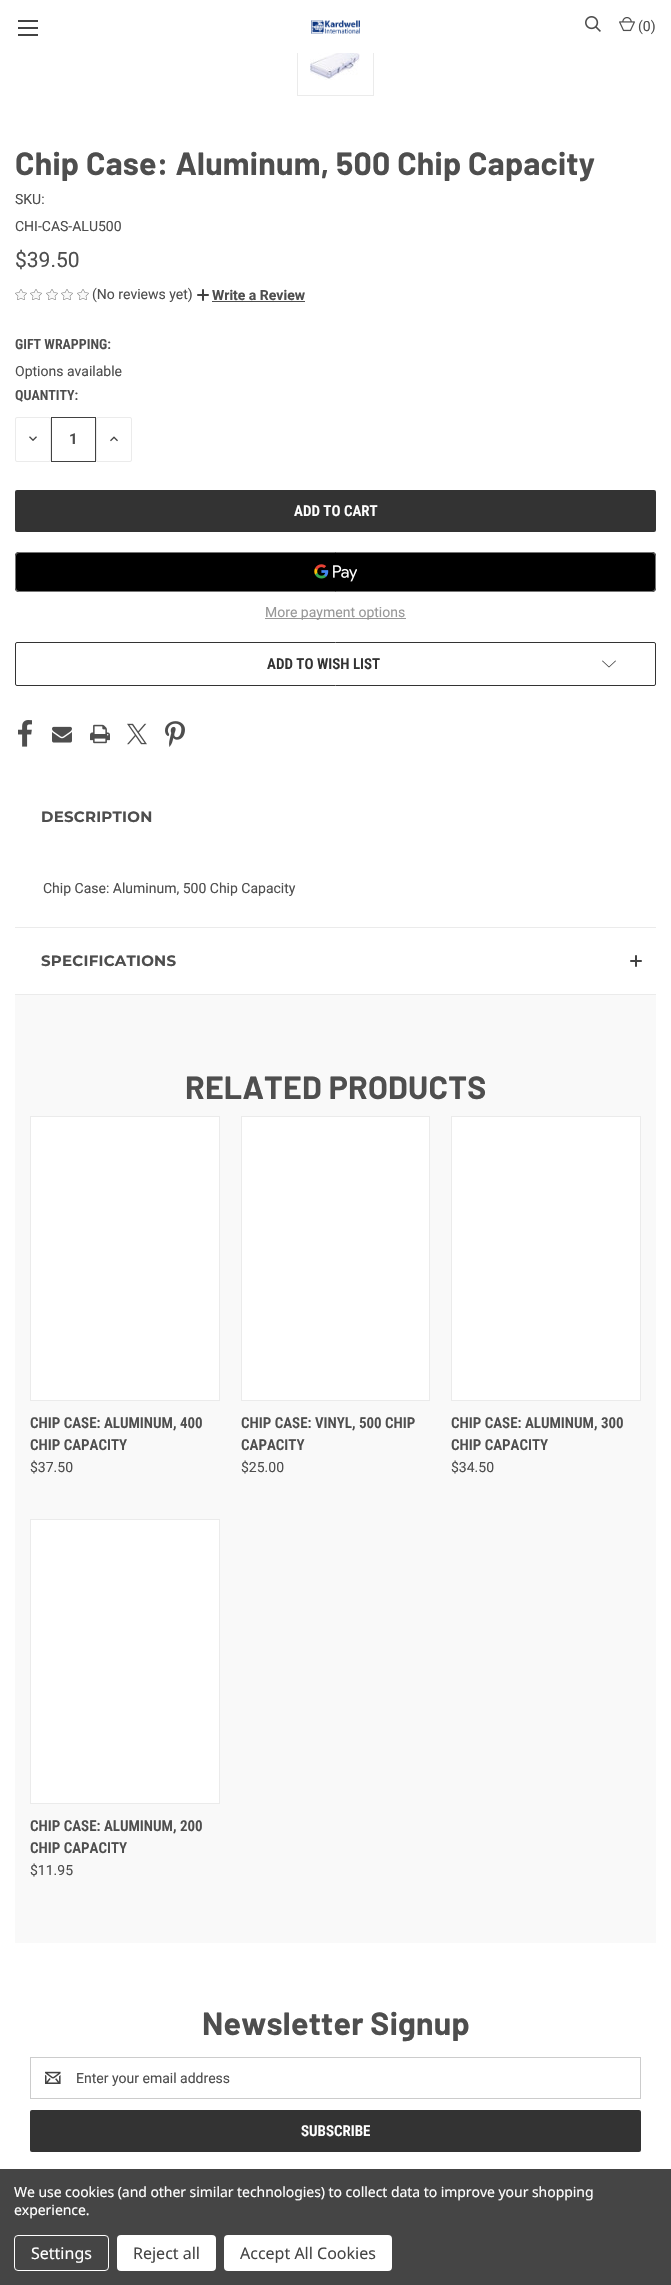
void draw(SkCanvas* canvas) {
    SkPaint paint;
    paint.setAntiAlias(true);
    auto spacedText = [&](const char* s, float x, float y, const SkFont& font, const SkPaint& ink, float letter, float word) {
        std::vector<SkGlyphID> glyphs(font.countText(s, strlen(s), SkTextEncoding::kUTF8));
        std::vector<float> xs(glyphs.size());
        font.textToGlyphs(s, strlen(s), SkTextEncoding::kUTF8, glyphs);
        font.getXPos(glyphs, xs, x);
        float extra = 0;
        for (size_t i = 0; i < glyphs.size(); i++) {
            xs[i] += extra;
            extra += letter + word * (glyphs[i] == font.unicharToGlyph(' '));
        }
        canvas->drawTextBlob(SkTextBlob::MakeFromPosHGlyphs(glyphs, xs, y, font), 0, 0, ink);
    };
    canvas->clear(0xFFFFFFFF);
    paint.setColor(0xFF424242);
    canvas->drawRect(SkRect::MakeXYWH(18, 27, 20, 2), paint);
    canvas->drawRect(SkRect::MakeXYWH(18, 20, 20, 2), paint);
    canvas->drawRect(SkRect::MakeXYWH(18, 34, 20, 2), paint);
    paint.setStyle(SkPaint::kStroke_Style);
    paint.setStrokeWidth(1);
    paint.setColor(0xFFEBEBEB);
    canvas->drawRect(SkRect::MakeXYWH(297.5f, 27.5f, 76, 68), paint);
    paint.setStyle(SkPaint::kFill_Style);
    paint.setColor(0xFFFFFFFF);
    canvas->drawRect(SkRect::MakeXYWH(297, 27, 77, 26), paint);
    canvas->drawImageRect(SkImages::DeferredFromEncodedData(SkData::MakeFromFileName("img1.png")), SkRect::MakeXYWH(311, 20, 49, 14), SkSamplingOptions());
    canvas->drawImageRect(SkImages::DeferredFromEncodedData(SkData::MakeFromFileName("img2.png")), SkRect::MakeXYWH(585, 16, 16, 16), SkSamplingOptions());
    canvas->drawImageRect(SkImages::DeferredFromEncodedData(SkData::MakeFromFileName("img3.png")), SkRect::MakeXYWH(619, 17, 16, 15), SkSamplingOptions());
    SkFont font1(fontMgr->matchFamilyStyle("Roboto", SkFontStyle::Normal()), 14);
    font1.setSubpixel(true);
    paint.setColor(0xFF4E4E4E);
    canvas->drawString("(0)", 638, 31, font1, paint);
    canvas->drawImageRect(SkImages::DeferredFromEncodedData(SkData::MakeFromFileName("img4.png")), SkRect::MakeXYWH(310, 53, 50, 27), SkSamplingOptions());
    SkFont font2(fontMgr->matchFamilyStyle("Barlow", SkFontStyle::Bold()), 32);
    font2.setSubpixel(true);
    spacedText("Chip Case: Aluminum, 500 Chip Capacity", 15, 175, font2, paint, 0.25f, 0);
    canvas->drawString("SKU:", 15, 204, font1, paint);
    canvas->drawString("CHI-CAS-ALU500", 15, 231, font1, paint);
    SkFont font3(fontMgr->matchFamilyStyle("Roboto", SkFontStyle::Normal()), 21);
    font3.setSubpixel(true);
    canvas->drawString("$39.50", 15, 267, font3, paint);
    canvas->drawImageRect(SkImages::DeferredFromEncodedData(SkData::MakeFromFileName("img5.png")), SkRect::MakeXYWH(15, 289, 12, 11), SkSamplingOptions());
    canvas->drawImageRect(SkImages::DeferredFromEncodedData(SkData::MakeFromFileName("img5.png")), SkRect::MakeXYWH(30, 289, 12, 11), SkSamplingOptions());
    canvas->drawImageRect(SkImages::DeferredFromEncodedData(SkData::MakeFromFileName("img5.png")), SkRect::MakeXYWH(46, 289, 12, 11), SkSamplingOptions());
    canvas->drawImageRect(SkImages::DeferredFromEncodedData(SkData::MakeFromFileName("img5.png")), SkRect::MakeXYWH(61, 289, 12, 11), SkSamplingOptions());
    canvas->drawImageRect(SkImages::DeferredFromEncodedData(SkData::MakeFromFileName("img5.png")), SkRect::MakeXYWH(77, 289, 12, 11), SkSamplingOptions());
    canvas->drawString("(No reviews yet)", 92, 299, font1, paint);
    canvas->drawImageRect(SkImages::DeferredFromEncodedData(SkData::MakeFromFileName("img6.png")), SkRect::MakeXYWH(197, 289, 12, 12), SkSamplingOptions());
    SkFont font4(fontMgr->matchFamilyStyle("Roboto", SkFontStyle::Bold()), 14);
    font4.setSubpixel(true);
    canvas->drawString("Write a Review", 212, 300, font4, paint);
    canvas->drawRect(SkRect::MakeXYWH(212, 301, 93, 1), paint);
    SkFont font5(fontMgr->matchFamilyStyle("Roboto Condensed", SkFontStyle(600, SkFontStyle::kNormal_Width, SkFontStyle::kUpright_Slant)), 14);
    font5.setSubpixel(true);
    canvas->drawString("GIFT WRAPPING:", 15, 349, font5, paint);
    canvas->drawString("Options available", 15, 376, font1, paint);
    canvas->drawString("QUANTITY:", 15, 400, font5, paint);
    paint.setStyle(SkPaint::kStroke_Style);
    paint.setColor(0xFFEBEBEB);
    canvas->drawRoundRect(SkRect::MakeXYWH(15.5f, 417.5f, 35, 44), 1.5f, 1.5f, paint);
    canvas->drawImageRect(SkImages::DeferredFromEncodedData(SkData::MakeFromFileName("img7.png")), SkRect::MakeXYWH(29, 436, 8, 5), SkSamplingOptions());
    paint.setColor(0xFF424242);
    canvas->drawRect(SkRect::MakeXYWH(51.5f, 417.5f, 44, 44), paint);
    SkFont font6(fontMgr->matchFamilyStyle("Roboto", SkFontStyle::Bold()), 15);
    font6.setSubpixel(true);
    paint.setStyle(SkPaint::kFill_Style);
    paint.setColor(0xFF4E4E4E);
    canvas->drawString("1", 69, 444, font6, paint);
    paint.setStyle(SkPaint::kStroke_Style);
    paint.setColor(0xFFEBEBEB);
    canvas->drawRoundRect(SkRect::MakeXYWH(96.5f, 417.5f, 35, 44), 1.5f, 1.5f, paint);
    canvas->drawImageRect(SkImages::DeferredFromEncodedData(SkData::MakeFromFileName("img8.png")), SkRect::MakeXYWH(110, 436, 8, 6), SkSamplingOptions());
    paint.setStyle(SkPaint::kFill_Style);
    paint.setColor(0xFF333333);
    canvas->drawRoundRect(SkRect::MakeXYWH(15, 490, 641, 42), 2, 2, paint);
    SkFont font7(fontMgr->matchFamilyStyle("Roboto Condensed", SkFontStyle(600, SkFontStyle::kNormal_Width, SkFontStyle::kUpright_Slant)), 15);
    font7.setSubpixel(true);
    paint.setColor(0xFFFFFFFF);
    canvas->drawString("ADD TO CART", 294, 516, font7, paint);
    paint.setColor(0xFF000000);
    canvas->drawRoundRect(SkRect::MakeXYWH(15, 552, 641, 40), 4, 4, paint);
    canvas->drawImageRect(SkImages::DeferredFromEncodedData(SkData::MakeFromFileName("img9.png")), SkRect::MakeXYWH(314, 564, 43, 18), SkSamplingOptions());
    paint.setStyle(SkPaint::kStroke_Style);
    paint.setColor(0xFF757575);
    canvas->drawRoundRect(SkRect::MakeXYWH(15.5f, 552.5f, 640, 39), 3.5f, 3.5f, paint);
    paint.setStyle(SkPaint::kFill_Style);
    paint.setColor(0xFF989898);
    canvas->drawRect(SkRect::MakeXYWH(265, 618, 141, 1), paint);
    canvas->drawString("More payment options", 265, 617, font1, paint);
    paint.setStyle(SkPaint::kStroke_Style);
    paint.setColor(0xFF333333);
    canvas->drawRoundRect(SkRect::MakeXYWH(15.5f, 642.5f, 640, 43), 1.5f, 1.5f, paint);
    paint.setStyle(SkPaint::kFill_Style);
    canvas->drawString("ADD TO WISH LIST", 267, 669, font7, paint);
    canvas->drawImageRect(SkImages::DeferredFromEncodedData(SkData::MakeFromFileName("img10.png")), SkRect::MakeXYWH(602, 660, 14, 8), SkSamplingOptions());
    canvas->drawImageRect(SkImages::DeferredFromEncodedData(SkData::MakeFromFileName("img11.png")), SkRect::MakeXYWH(18, 720, 14, 27), SkSamplingOptions());
    canvas->drawImageRect(SkImages::DeferredFromEncodedData(SkData::MakeFromFileName("img12.png")), SkRect::MakeXYWH(52, 726, 20, 17), SkSamplingOptions());
    canvas->drawImageRect(SkImages::DeferredFromEncodedData(SkData::MakeFromFileName("img13.png")), SkRect::MakeXYWH(90, 724, 20, 20), SkSamplingOptions());
    canvas->drawImageRect(SkImages::DeferredFromEncodedData(SkData::MakeFromFileName("img14.png")), SkRect::MakeXYWH(127, 723, 20, 22), SkSamplingOptions());
    canvas->drawImageRect(SkImages::DeferredFromEncodedData(SkData::MakeFromFileName("img15.png")), SkRect::MakeXYWH(165, 721, 20, 26), SkSamplingOptions());
    SkFont font8(fontMgr->matchFamilyStyle("Montserrat", SkFontStyle::Bold()), 15);
    font8.setSubpixel(true);
    paint.setColor(0xFF4E4E4E);
    spacedText("DESCRIPTION", 41, 822, font8, paint, 0.25f, 0);
    canvas->drawString("Chip Case: Aluminum, 500 Chip Capacity", 43, 893, font1, paint);
    paint.setColor(0xFFEBEBEB);
    canvas->drawRect(SkRect::MakeXYWH(15, 927, 641, 1), paint);
    canvas->drawRect(SkRect::MakeXYWH(15, 994, 641, 1), paint);
    paint.setColor(0xFF4E4E4E);
    spacedText("SPECIFICATIONS", 41, 966, font8, paint, 0.25f, 0);
    canvas->drawImageRect(SkImages::DeferredFromEncodedData(SkData::MakeFromFileName("img6.png")), SkRect::MakeXYWH(630, 955, 12, 12), SkSamplingOptions());
    paint.setColor(0xFFF9F9F9);
    canvas->drawRect(SkRect::MakeXYWH(15, 995, 641, 948), paint);
    paint.setColor(0xFF4E4E4E);
    spacedText("RELATED PRODUCTS", 185, 1099, font2, paint, 0.25f, 0);
    paint.setColor(0xFFFFFFFF);
    canvas->drawRect(SkRect::MakeXYWH(30.5f, 1116.5f, 189, 284), paint);
    paint.setStyle(SkPaint::kStroke_Style);
    paint.setColor(0xFFEBEBEB);
    canvas->drawRect(SkRect::MakeXYWH(30.5f, 1116.5f, 189, 284), paint);
    paint.setStyle(SkPaint::kFill_Style);
    paint.setColor(0xFF4E4E4E);
    canvas->drawString("CHIP CASE: ALUMINUM, 400", 30, 1428, font7, paint);
    canvas->drawString("CHIP CAPACITY", 30, 1450, font7, paint);
    canvas->drawString("$37.50", 30, 1472, font1, paint);
    paint.setColor(0xFFFFFFFF);
    canvas->drawRect(SkRect::MakeXYWH(241.5f, 1116.5f, 188, 284), paint);
    paint.setStyle(SkPaint::kStroke_Style);
    paint.setColor(0xFFEBEBEB);
    canvas->drawRect(SkRect::MakeXYWH(241.5f, 1116.5f, 188, 284), paint);
    paint.setStyle(SkPaint::kFill_Style);
    paint.setColor(0xFF4E4E4E);
    canvas->drawString("CHIP CASE: VINYL, 500 CHIP", 241, 1428, font7, paint);
    canvas->drawString("CAPACITY", 241, 1450, font7, paint);
    canvas->drawString("$25.00", 241, 1472, font1, paint);
    paint.setColor(0xFFFFFFFF);
    canvas->drawRect(SkRect::MakeXYWH(451.5f, 1116.5f, 189, 284), paint);
    paint.setStyle(SkPaint::kStroke_Style);
    paint.setColor(0xFFEBEBEB);
    canvas->drawRect(SkRect::MakeXYWH(451.5f, 1116.5f, 189, 284), paint);
    paint.setStyle(SkPaint::kFill_Style);
    paint.setColor(0xFF4E4E4E);
    canvas->drawString("CHIP CASE: ALUMINUM, 300", 451, 1428, font7, paint);
    canvas->drawString("CHIP CAPACITY", 451, 1450, font7, paint);
    canvas->drawString("$34.50", 451, 1472, font1, paint);
    paint.setColor(0xFFFFFFFF);
    canvas->drawRect(SkRect::MakeXYWH(30.5f, 1519.5f, 189, 284), paint);
    paint.setStyle(SkPaint::kStroke_Style);
    paint.setColor(0xFFEBEBEB);
    canvas->drawRect(SkRect::MakeXYWH(30.5f, 1519.5f, 189, 284), paint);
    paint.setStyle(SkPaint::kFill_Style);
    paint.setColor(0xFF4E4E4E);
    canvas->drawString("CHIP CASE: ALUMINUM, 200", 30, 1831, font7, paint);
    canvas->drawString("CHIP CAPACITY", 30, 1853, font7, paint);
    canvas->drawString("$11.95", 30, 1875, font1, paint);
    spacedText("Newsletter Signup", 202, 2035, font2, paint, 0.25f, 0);
    paint.setStyle(SkPaint::kStroke_Style);
    paint.setColor(0xFFCCCCCC);
    canvas->drawRect(SkRect::MakeXYWH(30.5f, 2057.5f, 610, 41), paint);
    canvas->drawImageRect(SkImages::DeferredFromEncodedData(SkData::MakeFromFileName("img16.png")), SkRect::MakeXYWH(45, 2071, 16, 13), SkSamplingOptions());
    paint.setStyle(SkPaint::kFill_Style);
    paint.setColor(0xFF4E4E4E);
    canvas->drawString("Enter your email address", 76, 2083, font1, paint);
    paint.setColor(0xFF333333);
    canvas->drawRoundRect(SkRect::MakeXYWH(30, 2110, 611, 42), 2, 2, paint);
    paint.setColor(0xFFFFFFFF);
    canvas->drawString("SUBSCRIBE", 301, 2136, font7, paint);
    paint.setColor(0xFF454545);
    canvas->drawRect(SkRect::MakeXYWH(0, 2169, 671, 116), paint);
    SkFont font9(fontMgr->matchFamilyStyle("Noto Sans", SkFontStyle::Normal()), 14);
    font9.setSubpixel(true);
    paint.setColor(0xFFFFFFFF);
    spacedText("We use cookies (and other similar technologies) to collect data to improve your shopping", 14, 2197, font9, paint, -0.05f, 0);
    spacedText("experience.", 14, 2215, font9, paint, -0.05f, 0);
    paint.setStyle(SkPaint::kStroke_Style);
    canvas->drawRoundRect(SkRect::MakeXYWH(14.5f, 2235.5f, 94, 35), 3.5f, 3.5f, paint);
    SkFont font10(fontMgr->matchFamilyStyle("Noto Sans", SkFontStyle::Normal()), 16);
    font10.setSubpixel(true);
    paint.setStyle(SkPaint::kFill_Style);
    canvas->drawString("Settings", 31, 2259, font10, paint);
    canvas->drawRoundRect(SkRect::MakeXYWH(117, 2235, 99, 36), 4, 4, paint);
    paint.setColor(0xFF454545);
    canvas->drawString("Reject all", 133, 2259, font10, paint);
    paint.setColor(0xFFFFFFFF);
    canvas->drawRoundRect(SkRect::MakeXYWH(224, 2235, 168, 36), 4, 4, paint);
    paint.setColor(0xFF454545);
    canvas->drawString("Accept All Cookies", 240, 2259, font10, paint);
}
